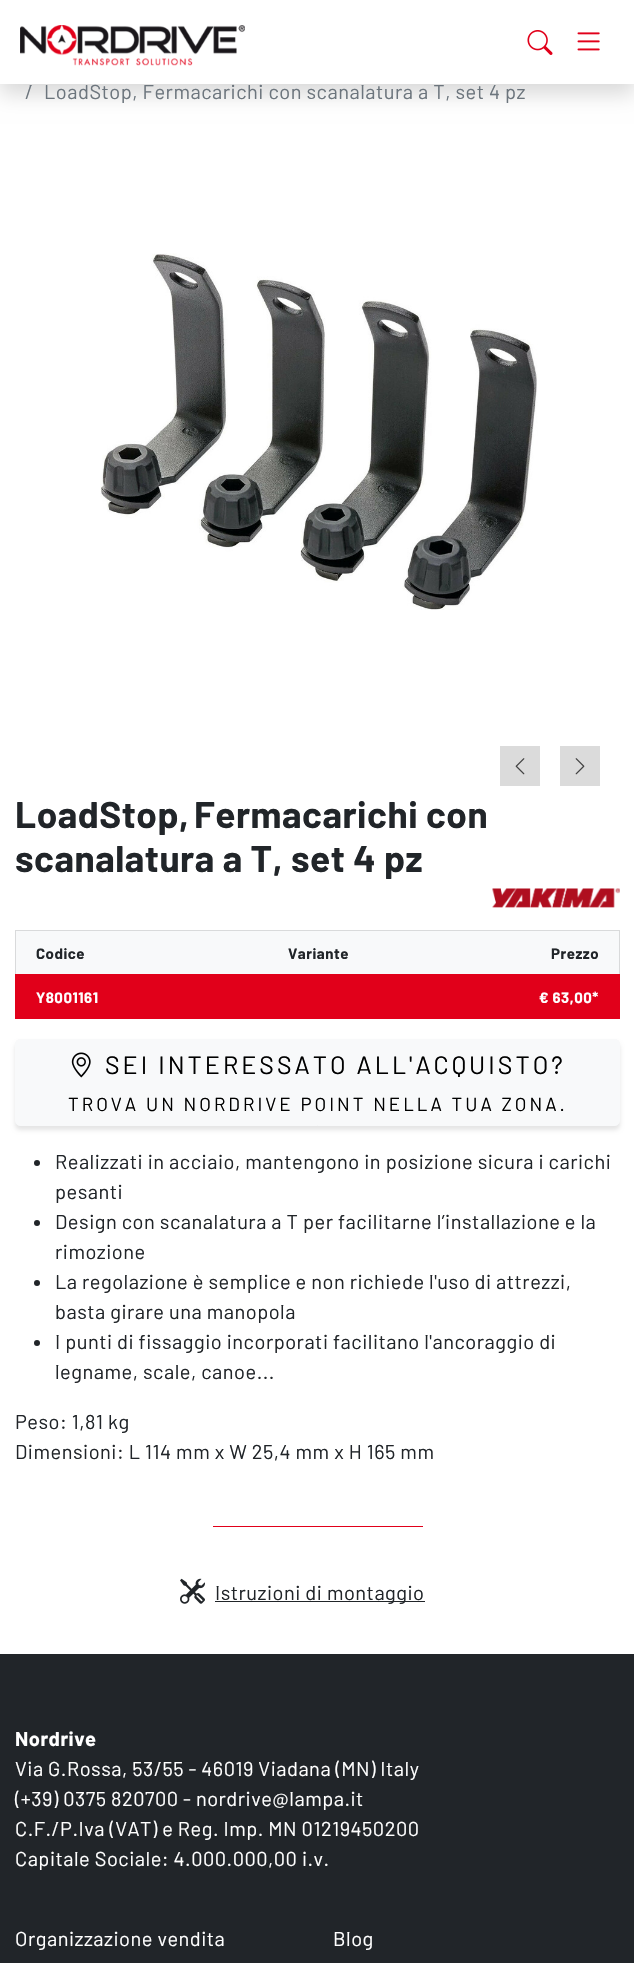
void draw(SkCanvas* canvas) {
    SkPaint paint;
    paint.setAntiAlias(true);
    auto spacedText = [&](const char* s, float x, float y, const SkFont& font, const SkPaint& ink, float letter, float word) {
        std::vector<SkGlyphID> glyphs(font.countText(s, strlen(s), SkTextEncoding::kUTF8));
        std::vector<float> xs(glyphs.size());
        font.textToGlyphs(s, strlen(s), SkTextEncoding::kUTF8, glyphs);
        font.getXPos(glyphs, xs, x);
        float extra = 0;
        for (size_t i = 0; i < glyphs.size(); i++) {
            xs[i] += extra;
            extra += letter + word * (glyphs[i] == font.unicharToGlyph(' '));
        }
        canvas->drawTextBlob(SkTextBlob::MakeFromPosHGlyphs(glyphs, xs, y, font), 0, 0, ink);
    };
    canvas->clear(0xFFFFFFFF);
    paint.setColor(0x26000000);
    paint.setMaskFilter(SkMaskFilter::MakeBlur(kNormal_SkBlurStyle, 10));
    canvas->drawRect(SkRect::MakeXYWH(0, 10, 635, 84), paint);
    paint.setMaskFilter(nullptr);
    paint.setColor(0xFFFFFFFF);
    canvas->drawRect(SkRect::MakeXYWH(0, 0, 634, 84), paint);
    canvas->drawImageRect(SkImages::DeferredFromEncodedData(SkData::MakeFromFileName("img1.png")), SkRect::MakeXYWH(20, 25, 225, 41), SkSamplingOptions());
    canvas->drawImageRect(SkImages::DeferredFromEncodedData(SkData::MakeFromFileName("img2.png")), SkRect::MakeXYWH(527, 30, 26, 25), SkSamplingOptions());
    canvas->drawImageRect(SkImages::DeferredFromEncodedData(SkData::MakeFromFileName("img3.png")), SkRect::MakeXYWH(577, 32, 23, 19), SkSamplingOptions());
    SkFont font1(fontMgr->matchFamilyStyle("Barlow", SkFontStyle::Normal()), 20);
    font1.setSubpixel(true);
    paint.setColor(0xFF6C757D);
    spacedText("/", 25, 99, font1, paint, 0.5f, 0);
    spacedText("LoadStop, Fermacarichi con scanalatura a T, set 4 pz", 44, 99, font1, paint, 0.5f, 0);
    canvas->drawImageRect(SkImages::DeferredFromEncodedData(SkData::MakeFromFileName("img4.png")), SkRect::MakeXYWH(100, 253, 438, 357), SkSamplingOptions());
    paint.setColor(0xFFDBDBDB);
    canvas->drawRect(SkRect::MakeXYWH(500, 746, 40, 40), paint);
    canvas->drawImageRect(SkImages::DeferredFromEncodedData(SkData::MakeFromFileName("img5.png")), SkRect::MakeXYWH(515, 758, 10, 17), SkSamplingOptions());
    canvas->drawRect(SkRect::MakeXYWH(560, 746, 40, 40), paint);
    canvas->drawImageRect(SkImages::DeferredFromEncodedData(SkData::MakeFromFileName("img6.png")), SkRect::MakeXYWH(575, 758, 10, 17), SkSamplingOptions());
    SkFont font2(fontMgr->matchFamilyStyle("Barlow", SkFontStyle::Bold()), 37);
    font2.setSubpixel(true);
    paint.setColor(0xFF212529);
    spacedText("LoadStop,", 15, 828, font2, paint, 0.5f, 0);
    spacedText("Fermacarichi con", 194, 828, font2, paint, 0.5f, 0);
    spacedText("scanalatura a T, set 4 pz", 15, 872, font2, paint, 0.5f, 0);
    canvas->drawImageRect(SkImages::DeferredFromEncodedData(SkData::MakeFromFileName("img7.png")), SkRect::MakeXYWH(492, 888, 128, 20), SkSamplingOptions());
    paint.setColor(0xFFF8F9FA);
    canvas->drawRect(SkRect::MakeXYWH(15.5f, 930.5f, 604, 44), paint);
    paint.setStyle(SkPaint::kStroke_Style);
    paint.setStrokeWidth(1);
    paint.setColor(0xFFD9DADB);
    canvas->drawRect(SkRect::MakeXYWH(15.5f, 930.5f, 604, 44), paint);
    SkFont font3(fontMgr->matchFamilyStyle("Barlow", SkFontStyle::Bold()), 15);
    font3.setSubpixel(true);
    paint.setStyle(SkPaint::kFill_Style);
    paint.setColor(0xFF212529);
    spacedText("Codice", 36, 959, font3, paint, 0.5f, 0);
    spacedText("Variante", 288, 959, font3, paint, 0.5f, 0);
    spacedText("Prezzo", 551, 959, font3, paint, 0.5f, 0);
    paint.setColor(0xFFE1001A);
    canvas->drawRect(SkRect::MakeXYWH(15, 974, 605, 45), paint);
    paint.setColor(0xFFFFFFFF);
    spacedText("Y8001161", 36, 1003, font3, paint, 0.5f, 0);
    spacedText("€ 63,00*", 539, 1003, font3, paint, 0.5f, 0);
    paint.setColor(0x1A000000);
    paint.setMaskFilter(SkMaskFilter::MakeBlur(kNormal_SkBlurStyle, 2));
    canvas->drawRoundRect(SkRect::MakeXYWH(15, 1043, 605, 87), 5, 5, paint);
    paint.setMaskFilter(nullptr);
    paint.setColor(0xFFF8F9FA);
    canvas->drawRoundRect(SkRect::MakeXYWH(15.5f, 1039.5f, 604, 86), 4.5f, 4.5f, paint);
    paint.setStyle(SkPaint::kStroke_Style);
    canvas->drawRoundRect(SkRect::MakeXYWH(15.5f, 1039.5f, 604, 86), 4.5f, 4.5f, paint);
    canvas->drawImageRect(SkImages::DeferredFromEncodedData(SkData::MakeFromFileName("img8.png")), SkRect::MakeXYWH(71, 1052, 20, 26), SkSamplingOptions());
    SkFont font4(fontMgr->matchFamilyStyle("Barlow", SkFontStyle::Normal()), 25);
    font4.setSubpixel(true);
    paint.setStyle(SkPaint::kFill_Style);
    paint.setColor(0xFF000000);
    spacedText("SEI INTERESSATO ALL'ACQUISTO?", 105, 1074, font4, paint, 3, 0);
    SkFont font5(fontMgr->matchFamilyStyle("Barlow", SkFontStyle::Normal()), 18.75f);
    font5.setSubpixel(true);
    spacedText("TROVA UN NORDRIVE POINT NELLA TUA ZONA.", 68, 1111, font5, paint, 3, 0);
    paint.setColor(0xFF212529);
    canvas->drawCircle(37, 1163, 3, paint);
    spacedText("Realizzati in acciaio, mantengono in posizione sicura i carichi", 55, 1169, font1, paint, 0.5f, 0);
    spacedText("pesanti", 55, 1199, font1, paint, 0.5f, 0);
    canvas->drawCircle(37, 1223, 3, paint);
    spacedText("Design con scanalatura a T per facilitarne l’installazione e la", 55, 1229, font1, paint, 0.5f, 0);
    spacedText("rimozione", 55, 1259, font1, paint, 0.5f, 0);
    canvas->drawCircle(37, 1283, 3, paint);
    spacedText("La regolazione è semplice e non richiede l'uso di attrezzi,", 55, 1289, font1, paint, 0.5f, 0);
    spacedText("basta girare una manopola", 55, 1319, font1, paint, 0.5f, 0);
    canvas->drawCircle(37, 1343, 3, paint);
    spacedText("I punti di fissaggio incorporati facilitano l'ancoraggio di", 55, 1349, font1, paint, 0.5f, 0);
    spacedText("legname, scale, canoe...", 55, 1379, font1, paint, 0.5f, 0);
    spacedText("Peso: 1,81 kg", 15, 1429, font1, paint, 0.5f, 0);
    spacedText("Dimensioni: L 114 mm x W 25,4 mm x H 165 mm", 15, 1459, font1, paint, 0.5f, 0);
    paint.setColor(0xFFE1001A);
    canvas->drawRect(SkRect::MakeXYWH(213, 1526, 210, 1), paint);
    canvas->drawImageRect(SkImages::DeferredFromEncodedData(SkData::MakeFromFileName("img9.png")), SkRect::MakeXYWH(180, 1578, 25, 26), SkSamplingOptions());
    paint.setColor(0xFF212529);
    canvas->drawRect(SkRect::MakeXYWH(215, 1601, 210, 1), paint);
    spacedText("Istruzioni di montaggio", 215, 1600, font1, paint, 0.5f, 0);
    canvas->drawRect(SkRect::MakeXYWH(0, 1654, 634, 309), paint);
    SkFont font6(fontMgr->matchFamilyStyle("Barlow", SkFontStyle::Bold()), 20);
    font6.setSubpixel(true);
    paint.setColor(0xFFFFFFFF);
    spacedText("Nordrive", 15, 1746, font6, paint, 0.5f, 0);
    spacedText("Via G.Rossa, 53/55 - 46019 Viadana (MN) Italy", 15, 1776, font1, paint, 0.5f, 0);
    spacedText("(+39) 0375 820700 - nordrive@lampa.it", 15, 1806, font1, paint, 0.5f, 0);
    spacedText("C.F./P.Iva (VAT) e Reg. Imp. MN 01219450200", 15, 1836, font1, paint, 0.5f, 0);
    spacedText("Capitale Sociale: 4.000.000,00 i.v.", 15, 1866, font1, paint, 0.5f, 0);
    spacedText("Organizzazione vendita", 15, 1946, font1, paint, 0.5f, 0);
    spacedText("Blog", 333, 1946, font1, paint, 0.5f, 0);
}
